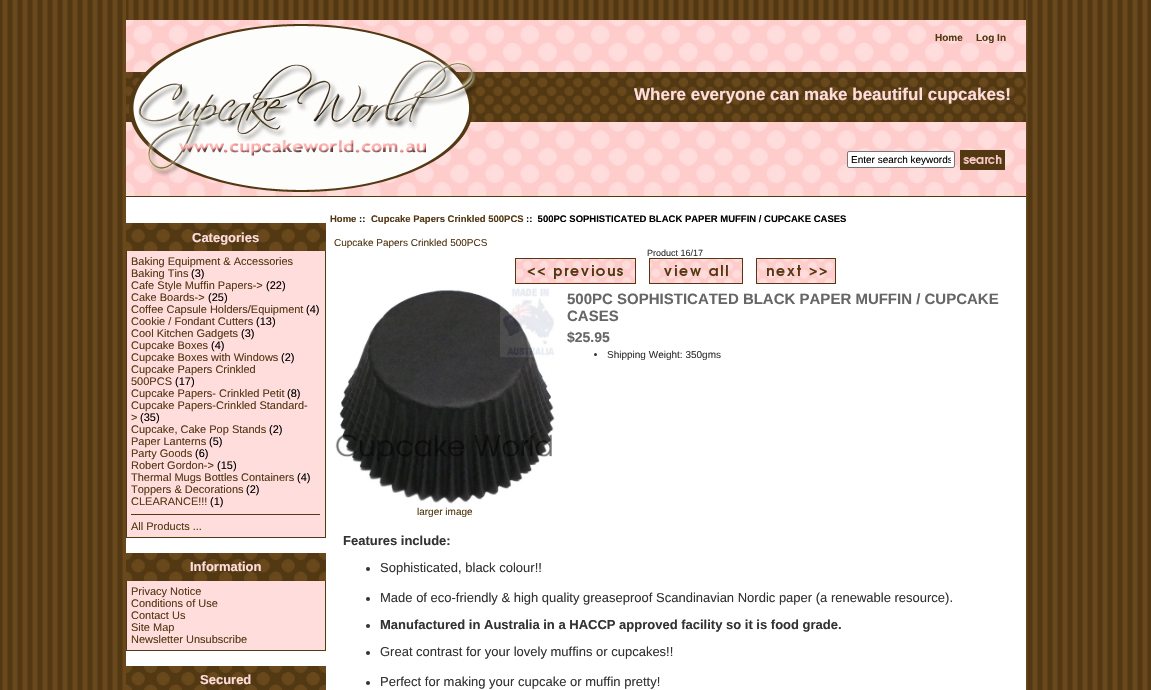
void draw(SkCanvas* canvas) {
    SkPaint paint;
    paint.setAntiAlias(true);
    canvas->clear(0xFFFFFFFF);
    canvas->drawImageRect(SkImages::DeferredFromEncodedData(SkData::MakeFromFileName("img1.png")), SkRect::MakeXYWH(0, 0, 1151, 690), SkSamplingOptions());
    paint.setColor(0xFFFFFFFF);
    canvas->drawRect(SkRect::MakeXYWH(126, 197, 900, 493), paint);
    canvas->drawImageRect(SkImages::DeferredFromEncodedData(SkData::MakeFromFileName("img2.png")), SkRect::MakeXYWH(126, 0, 900, 20), SkSamplingOptions());
    canvas->drawImageRect(SkImages::DeferredFromEncodedData(SkData::MakeFromFileName("img4.png")), SkRect::MakeXYWH(126, 20, 900, 177), SkSamplingOptions());
    SkFont font1(fontMgr->matchFamilyStyle("Liberation Sans", SkFontStyle::Bold()), 10);
    font1.setSubpixel(true);
    paint.setColor(0xFF523813);
    canvas->drawString("Home", 935, 41, font1, paint);
    canvas->drawString("Log In", 976, 41, font1, paint);
    paint.setColor(0xFFFFFFFF);
    canvas->drawRoundRect(SkRect::MakeXYWH(847.5f, 151.5f, 107, 16), 1.5f, 1.5f, paint);
    paint.setStyle(SkPaint::kStroke_Style);
    paint.setStrokeWidth(1);
    paint.setColor(0xFF767676);
    canvas->drawRoundRect(SkRect::MakeXYWH(847.5f, 151.5f, 107, 16), 1.5f, 1.5f, paint);
    canvas->save();
    canvas->clipRect(SkRect::MakeXYWH(851, 154, 100, 11));
    SkFont font2(fontMgr->matchFamilyStyle("Liberation Sans", SkFontStyle::Normal()), 10);
    font2.setSubpixel(true);
    paint.setStyle(SkPaint::kFill_Style);
    paint.setColor(0xFF000000);
    canvas->drawString("Enter search keywords", 851, 163, font2, paint);
    canvas->restore();
    canvas->drawImageRect(SkImages::DeferredFromEncodedData(SkData::MakeFromFileName("img3.png")), SkRect::MakeXYWH(960, 150, 45, 20), SkSamplingOptions());
    canvas->drawImageRect(SkImages::DeferredFromEncodedData(SkData::MakeFromFileName("img5.png")), SkRect::MakeXYWH(129, 24, 347, 168), SkSamplingOptions());
    SkFont font3(fontMgr->matchFamilyStyle("Liberation Sans", SkFontStyle::Bold()), 17);
    font3.setSubpixel(true);
    paint.setColor(0xFFFFDDDC);
    canvas->drawString("Where everyone can make beautiful cupcakes!", 634, 100, font3, paint);
    canvas->drawImageRect(SkImages::DeferredFromEncodedData(SkData::MakeFromFileName("img6.png")), SkRect::MakeXYWH(126, 223, 200, 28), SkSamplingOptions());
    SkFont font4(fontMgr->matchFamilyStyle("Liberation Sans", SkFontStyle::Bold()), 13);
    font4.setSubpixel(true);
    canvas->drawString("Categories", 192, 242, font4, paint);
    canvas->drawRect(SkRect::MakeXYWH(127, 251, 198, 286), paint);
    paint.setColor(0xFF523813);
    canvas->drawRect(SkRect::MakeXYWH(325, 251, 1, 287), paint);
    canvas->drawRect(SkRect::MakeXYWH(126, 537, 200, 1), paint);
    canvas->drawRect(SkRect::MakeXYWH(126, 251, 1, 287), paint);
    SkFont font5(fontMgr->matchFamilyStyle("Liberation Sans", SkFontStyle::Normal()), 11);
    font5.setSubpixel(true);
    canvas->drawString("Baking Equipment & Accessories", 131, 265, font5, paint);
    canvas->drawString("Baking Tins", 131, 277, font5, paint);
    paint.setColor(0xFF000000);
    canvas->drawString("(3)", 191, 277, font5, paint);
    paint.setColor(0xFF523813);
    canvas->drawString("Cafe Style Muffin Papers->", 131, 289, font5, paint);
    paint.setColor(0xFF000000);
    canvas->drawString("(22)", 266, 289, font5, paint);
    paint.setColor(0xFF523813);
    canvas->drawString("Cake Boards->", 131, 301, font5, paint);
    paint.setColor(0xFF000000);
    canvas->drawString("(25)", 208, 301, font5, paint);
    paint.setColor(0xFF523813);
    canvas->drawString("Coffee Capsule Holders/Equipment", 131, 313, font5, paint);
    paint.setColor(0xFF000000);
    canvas->drawString("(4)", 306, 313, font5, paint);
    paint.setColor(0xFF523813);
    canvas->drawString("Cookie / Fondant Cutters", 131, 325, font5, paint);
    paint.setColor(0xFF000000);
    canvas->drawString("(13)", 256, 325, font5, paint);
    paint.setColor(0xFF523813);
    canvas->drawString("Cool Kitchen Gadgets", 131, 337, font5, paint);
    paint.setColor(0xFF000000);
    canvas->drawString("(3)", 241, 337, font5, paint);
    paint.setColor(0xFF523813);
    canvas->drawString("Cupcake Boxes", 131, 349, font5, paint);
    paint.setColor(0xFF000000);
    canvas->drawString("(4)", 211, 349, font5, paint);
    paint.setColor(0xFF523813);
    canvas->drawString("Cupcake Boxes with Windows", 131, 361, font5, paint);
    paint.setColor(0xFF000000);
    canvas->drawString("(2)", 281, 361, font5, paint);
    paint.setColor(0xFF523813);
    canvas->drawString("Cupcake Papers Crinkled", 131, 373, font5, paint);
    canvas->drawString("500PCS", 131, 385, font5, paint);
    paint.setColor(0xFF000000);
    canvas->drawString("(17)", 175, 385, font5, paint);
    paint.setColor(0xFF523813);
    canvas->drawString("Cupcake Papers- Crinkled Petit", 131, 397, font5, paint);
    paint.setColor(0xFF000000);
    canvas->drawString("(8)", 287, 397, font5, paint);
    paint.setColor(0xFF523813);
    canvas->drawString("Cupcake Papers-Crinkled Standard-", 131, 409, font5, paint);
    canvas->drawString(">", 131, 421, font5, paint);
    paint.setColor(0xFF000000);
    canvas->drawString("(35)", 140, 421, font5, paint);
    paint.setColor(0xFF523813);
    canvas->drawString("Cupcake, Cake Pop Stands", 131, 433, font5, paint);
    paint.setColor(0xFF000000);
    canvas->drawString("(2)", 269, 433, font5, paint);
    paint.setColor(0xFF523813);
    canvas->drawString("Paper Lanterns", 131, 445, font5, paint);
    paint.setColor(0xFF000000);
    canvas->drawString("(5)", 209, 445, font5, paint);
    paint.setColor(0xFF523813);
    canvas->drawString("Party Goods", 131, 457, font5, paint);
    paint.setColor(0xFF000000);
    canvas->drawString("(6)", 195, 457, font5, paint);
    paint.setColor(0xFF523813);
    canvas->drawString("Robert Gordon->", 131, 469, font5, paint);
    paint.setColor(0xFF000000);
    canvas->drawString("(15)", 217, 469, font5, paint);
    paint.setColor(0xFF523813);
    canvas->drawString("Thermal Mugs Bottles Containers", 131, 481, font5, paint);
    paint.setColor(0xFF000000);
    canvas->drawString("(4)", 297, 481, font5, paint);
    paint.setColor(0xFF523813);
    canvas->drawString("Toppers & Decorations", 131, 493, font5, paint);
    paint.setColor(0xFF000000);
    canvas->drawString("(2)", 246, 493, font5, paint);
    paint.setColor(0xFF523813);
    canvas->drawString("CLEARANCE!!!", 131, 505, font5, paint);
    paint.setColor(0xFF000000);
    canvas->drawString("(1)", 210, 505, font5, paint);
    paint.setColor(0xFF523813);
    canvas->drawRect(SkRect::MakeXYWH(131, 514, 189, 1), paint);
    canvas->drawString("All Products ...", 131, 530, font5, paint);
    canvas->drawImageRect(SkImages::DeferredFromEncodedData(SkData::MakeFromFileName("img6.png")), SkRect::MakeXYWH(126, 553, 200, 28), SkSamplingOptions());
    paint.setColor(0xFFFFDDDC);
    canvas->drawString("Information", 190, 571, font4, paint);
    canvas->drawRect(SkRect::MakeXYWH(127, 581, 198, 69), paint);
    paint.setColor(0xFF523813);
    canvas->drawRect(SkRect::MakeXYWH(325, 581, 1, 70), paint);
    canvas->drawRect(SkRect::MakeXYWH(126, 650, 200, 1), paint);
    canvas->drawRect(SkRect::MakeXYWH(126, 581, 1, 70), paint);
    canvas->drawString("Privacy Notice", 131, 595, font5, paint);
    canvas->drawString("Conditions of Use", 131, 607, font5, paint);
    canvas->drawString("Contact Us", 131, 619, font5, paint);
    canvas->drawString("Site Map", 131, 631, font5, paint);
    canvas->drawString("Newsletter Unsubscribe", 131, 643, font5, paint);
    canvas->drawImageRect(SkImages::DeferredFromEncodedData(SkData::MakeFromFileName("img7.png")), SkRect::MakeXYWH(126, 666, 200, 24), SkSamplingOptions());
    paint.setColor(0xFFFFDDDC);
    canvas->drawString("Secured", 200, 684, font4, paint);
    SkFont font6(fontMgr->matchFamilyStyle("Liberation Sans", SkFontStyle::Bold()), 9.5f);
    font6.setSubpixel(true);
    paint.setColor(0xFF523813);
    canvas->drawString("Home", 330, 222, font6, paint);
    paint.setColor(0xFF000000);
    canvas->drawString("::", 359, 222, font6, paint);
    paint.setColor(0xFF523813);
    canvas->drawString("Cupcake Papers Crinkled 500PCS", 371, 222, font6, paint);
    paint.setColor(0xFF000000);
    canvas->drawString("::  500PC SOPHISTICATED BLACK PAPER MUFFIN / CUPCAKE CASES", 526, 222, font6, paint);
    paint.setColor(0xFF523813);
    canvas->drawString("Cupcake Papers Crinkled 500PCS", 334, 246, font2, paint);
    SkFont font7(fontMgr->matchFamilyStyle("Liberation Sans", SkFontStyle::Normal()), 9);
    font7.setSubpixel(true);
    paint.setColor(0xFF333333);
    canvas->drawString("Product 16/17", 647, 256, font7, paint);
    canvas->drawImageRect(SkImages::DeferredFromEncodedData(SkData::MakeFromFileName("img8.png")), SkRect::MakeXYWH(515, 258, 121, 26), SkSamplingOptions());
    canvas->drawImageRect(SkImages::DeferredFromEncodedData(SkData::MakeFromFileName("img9.png")), SkRect::MakeXYWH(649, 258, 94, 26), SkSamplingOptions());
    canvas->drawImageRect(SkImages::DeferredFromEncodedData(SkData::MakeFromFileName("img10.png")), SkRect::MakeXYWH(756, 258, 80, 26), SkSamplingOptions());
    SkFont font8(fontMgr->matchFamilyStyle("Liberation Sans", SkFontStyle::Bold()), 15);
    font8.setSubpixel(true);
    paint.setColor(0xFF666666);
    canvas->drawString("500PC SOPHISTICATED BLACK PAPER MUFFIN / CUPCAKE", 567, 304, font8, paint);
    canvas->drawString("CASES", 567, 321, font8, paint);
    SkFont font9(fontMgr->matchFamilyStyle("Liberation Sans", SkFontStyle::Bold()), 14);
    font9.setSubpixel(true);
    canvas->drawString("$25.95", 567, 342, font9, paint);
    paint.setColor(0xFF333333);
    canvas->drawCircle(595.5f, 354.5f, 1.5f, paint);
    canvas->drawString("Shipping Weight: 350gms", 607, 358, font2, paint);
    canvas->drawImageRect(SkImages::DeferredFromEncodedData(SkData::MakeFromFileName("img11.png")), SkRect::MakeXYWH(335, 288, 220, 216), SkSamplingOptions());
    paint.setColor(0xFF523813);
    canvas->drawString("larger image", 417, 515, font2, paint);
    paint.setColor(0xFF333333);
    canvas->drawString("Features include:", 343, 545, font4, paint);
    canvas->drawCircle(368, 569, 2, paint);
    SkFont font10(fontMgr->matchFamilyStyle("Liberation Sans", SkFontStyle::Normal()), 13);
    font10.setSubpixel(true);
    canvas->drawString("Sophisticated, black colour!!", 380, 572, font10, paint);
    canvas->drawCircle(368, 599, 2, paint);
    canvas->drawString("Made of eco-friendly & high quality greaseproof Scandinavian Nordic paper (a renewable resource).", 380, 602, font10, paint);
    canvas->drawCircle(368, 626, 2, paint);
    canvas->drawString("Manufactured in Australia in a HACCP approved facility so it is food grade.", 380, 629, font4, paint);
    canvas->drawCircle(368, 653, 2, paint);
    canvas->drawString("Great contrast for your lovely muffins or cupcakes!!", 380, 656, font10, paint);
    canvas->drawCircle(368, 683, 2, paint);
    canvas->drawString("Perfect for making your cupcake or muffin pretty!", 380, 686, font10, paint);
}
